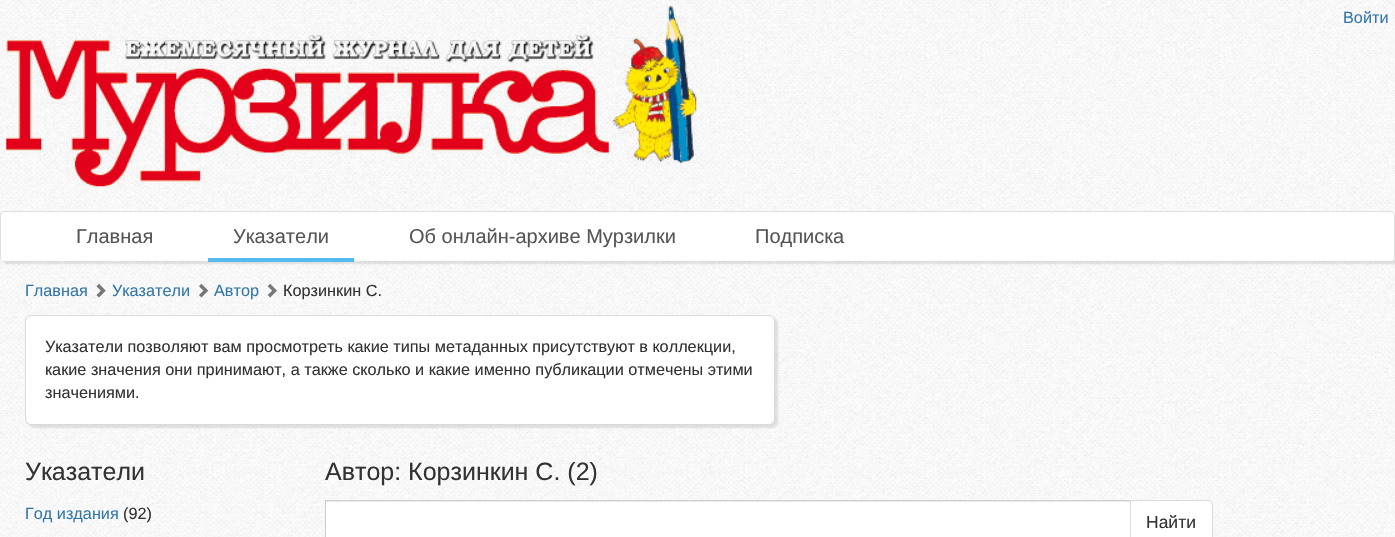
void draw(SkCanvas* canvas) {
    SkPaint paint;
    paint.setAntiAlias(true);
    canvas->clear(0xFFFFFFFF);
    canvas->drawImageRect(SkImages::DeferredFromEncodedData(SkData::MakeFromFileName("img1.png")), SkRect::MakeXYWH(0, 0, 1395, 537), SkSamplingOptions());
    canvas->drawImageRect(SkImages::DeferredFromEncodedData(SkData::MakeFromFileName("img2.png")), SkRect::MakeXYWH(6, 6, 691, 181), SkSamplingOptions());
    SkFont font1(fontMgr->matchFamilyStyle("Liberation Sans", SkFontStyle::Normal()), 16.25f);
    font1.setSubpixel(true);
    paint.setColor(0xFF3377AA);
    canvas->drawString("Войти", 1343, 23, font1, paint);
    paint.setColor(0x1A000000);
    paint.setMaskFilter(SkMaskFilter::MakeBlur(kNormal_SkBlurStyle, 1));
    canvas->drawRoundRect(SkRect::MakeXYWH(3, 214, 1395, 50), 4, 4, paint);
    paint.setMaskFilter(nullptr);
    paint.setColor(0xFFFFFFFF);
    canvas->drawRoundRect(SkRect::MakeXYWH(0, 211, 1395, 50), 4, 4, paint);
    paint.setColor(0xFFE0E0E0);
    canvas->drawPath(SkPathBuilder(SkPathFillType::kEvenOdd).moveTo(4, 211).lineTo(1391, 211).cubicTo(1393, 211, 1395, 213, 1395, 215).lineTo(1395, 258).cubicTo(1395, 260, 1393, 261, 1391, 261).lineTo(4, 261).cubicTo(2, 261, 0, 260, 0, 258).lineTo(0, 215).cubicTo(0, 213, 2, 211, 4, 211).close().moveTo(4, 212).lineTo(1391, 212).cubicTo(1393, 212, 1394, 214, 1394, 215).lineTo(1394, 258).cubicTo(1394, 260, 1393, 261, 1391, 261).lineTo(4, 261).cubicTo(2, 261, 1, 260, 1, 258).lineTo(1, 215).cubicTo(1, 214, 2, 212, 4, 212).close().detach(), paint);
    SkFont font2(fontMgr->matchFamilyStyle("Liberation Sans", SkFontStyle::Normal()), 20);
    font2.setSubpixel(true);
    paint.setColor(0xFF555555);
    canvas->drawString("Главная", 76, 243, font2, paint);
    paint.setColor(0xFF55BBEE);
    canvas->drawRect(SkRect::MakeXYWH(208, 258, 146, 4), paint);
    paint.setColor(0xFF555555);
    canvas->drawString("Указатели", 233, 243, font2, paint);
    canvas->drawString("Об онлайн-архиве Мурзилки", 409, 243, font2, paint);
    canvas->drawString("Подписка", 755, 243, font2, paint);
    paint.setColor(0xFF3377AA);
    canvas->drawString("Главная", 25, 296, font1, paint);
    canvas->drawImageRect(SkImages::DeferredFromEncodedData(SkData::MakeFromFileName("img3.png")), SkRect::MakeXYWH(96, 283, 10, 15), SkSamplingOptions());
    canvas->drawString("Указатели", 112, 296, font1, paint);
    canvas->drawImageRect(SkImages::DeferredFromEncodedData(SkData::MakeFromFileName("img4.png")), SkRect::MakeXYWH(199, 283, 10, 15), SkSamplingOptions());
    canvas->drawString("Автор", 214, 296, font1, paint);
    canvas->drawImageRect(SkImages::DeferredFromEncodedData(SkData::MakeFromFileName("img5.png")), SkRect::MakeXYWH(267, 283, 10, 15), SkSamplingOptions());
    paint.setColor(0xFF333333);
    canvas->drawString("Корзинкин С.", 283, 296, font1, paint);
    paint.setColor(0x1A000000);
    paint.setMaskFilter(SkMaskFilter::MakeBlur(kNormal_SkBlurStyle, 1));
    canvas->drawRoundRect(SkRect::MakeXYWH(28, 318, 750, 110), 6, 6, paint);
    paint.setMaskFilter(nullptr);
    paint.setColor(0xFFFFFFFF);
    canvas->drawRoundRect(SkRect::MakeXYWH(25.5f, 315.5f, 749, 109), 5.5f, 5.5f, paint);
    paint.setStyle(SkPaint::kStroke_Style);
    paint.setStrokeWidth(1);
    paint.setColor(0xFFDADADA);
    canvas->drawRoundRect(SkRect::MakeXYWH(25.5f, 315.5f, 749, 109), 5.5f, 5.5f, paint);
    paint.setStyle(SkPaint::kFill_Style);
    paint.setColor(0xFF333333);
    canvas->drawString("Указатели позволяют вам просмотреть какие типы метаданных присутствуют в коллекции,", 45, 352, font1, paint);
    canvas->drawString("какие значения они принимают, а также сколько и какие именно публикации отмечены этими", 45, 375, font1, paint);
    canvas->drawString("значениями.", 45, 398, font1, paint);
    SkFont font3(fontMgr->matchFamilyStyle("Liberation Sans", SkFontStyle::Normal()), 25);
    font3.setSubpixel(true);
    canvas->drawString("Указатели", 25, 480, font3, paint);
    paint.setColor(0xFF3377AA);
    canvas->drawString("Год издания", 25, 519, font1, paint);
    paint.setColor(0xFF333333);
    canvas->drawString("(92)", 123, 519, font1, paint);
    canvas->drawString("Автор: Корзинкин С. (2)", 325, 480, font3, paint);
    paint.setColor(0xFFFFFFFF);
    canvas->drawRect(SkRect::MakeXYWH(326, 502, 804, 35), paint);
    paint.setColor(0xFFECECEC);
    canvas->drawRect(SkRect::MakeXYWH(326, 501, 804, 1), paint);
    paint.setStyle(SkPaint::kStroke_Style);
    paint.setColor(0xFFCCCCCC);
    canvas->drawRect(SkRect::MakeXYWH(325.5f, 500.5f, 805, 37), paint);
    paint.setStyle(SkPaint::kFill_Style);
    paint.setColor(0xFFFFFFFF);
    canvas->drawPath(SkPathBuilder().moveTo(1130.5f, 500.5f).lineTo(1208, 500.5f).cubicTo(1210.5f, 500.5f, 1212.5f, 502.5f, 1212.5f, 505).lineTo(1212.5f, 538).cubicTo(1212.5f, 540.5f, 1210.5f, 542.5f, 1208, 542.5f).lineTo(1130.5f, 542.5f).close().detach(), paint);
    paint.setStyle(SkPaint::kStroke_Style);
    paint.setColor(0xFFDADADA);
    canvas->drawPath(SkPathBuilder().moveTo(1130.5f, 500.5f).lineTo(1208, 500.5f).cubicTo(1210.5f, 500.5f, 1212.5f, 502.5f, 1212.5f, 505).lineTo(1212.5f, 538).cubicTo(1212.5f, 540.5f, 1210.5f, 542.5f, 1208, 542.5f).lineTo(1130.5f, 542.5f).close().detach(), paint);
    SkFont font4(fontMgr->matchFamilyStyle("Liberation Sans", SkFontStyle::Normal()), 17.5f);
    font4.setSubpixel(true);
    paint.setStyle(SkPaint::kFill_Style);
    paint.setColor(0xFF333333);
    canvas->drawString("Найти", 1146, 528, font4, paint);
}
